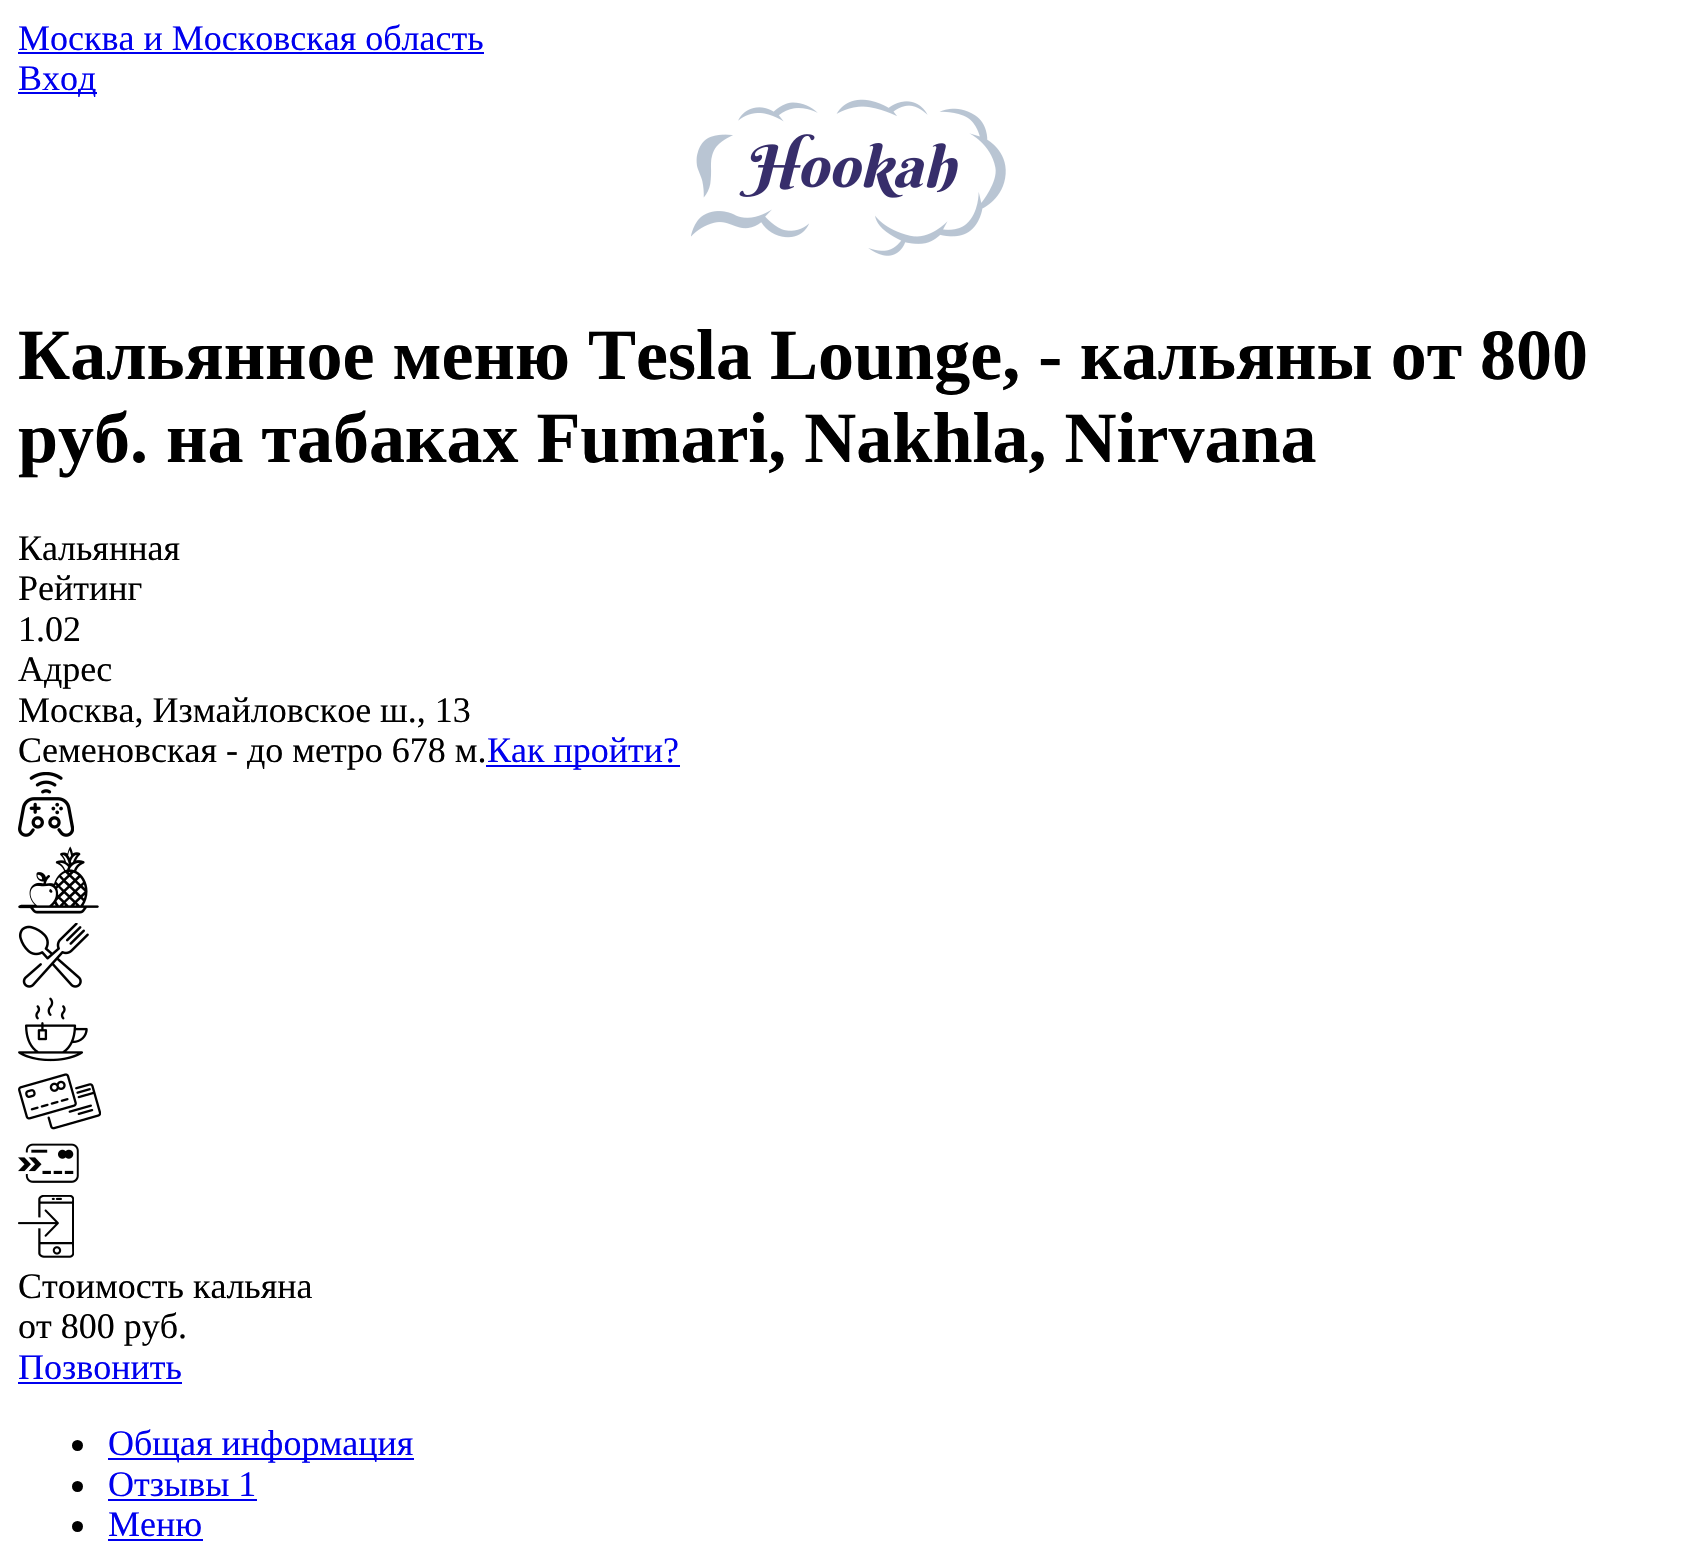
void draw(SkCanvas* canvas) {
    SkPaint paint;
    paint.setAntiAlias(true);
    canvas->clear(0xFFFFFFFF);
    SkFont font1(fontMgr->matchFamilyStyle("Liberation Serif", SkFontStyle::Normal()), 36);
    font1.setSubpixel(true);
    paint.setColor(0xFF0000EE);
    canvas->drawString("Москва и Московская область", 18, 50, font1, paint);
    canvas->drawRect(SkRect::MakeXYWH(18, 52, 466, 2), paint);
    canvas->drawRect(SkRect::MakeXYWH(18, 92, 79, 2), paint);
    canvas->drawString("Вход", 18, 90, font1, paint);
    canvas->drawImageRect(SkImages::DeferredFromEncodedData(SkData::MakeFromFileName("img1.png")), SkRect::MakeXYWH(691, 99, 315, 157), SkSamplingOptions());
    SkFont font2(fontMgr->matchFamilyStyle("Liberation Serif", SkFontStyle::Bold()), 72);
    font2.setSubpixel(true);
    paint.setColor(0xFF000000);
    canvas->drawString("Кальянное меню Tesla Lounge, - кальяны от 800", 18, 379, font2, paint);
    canvas->drawString("руб. на табаках Fumari, Nakhla, Nirvana", 18, 462, font2, paint);
    canvas->drawString("Кальянная", 18, 560, font1, paint);
    canvas->drawString("Рейтинг", 18, 600, font1, paint);
    canvas->drawString("1.02", 18, 641, font1, paint);
    canvas->drawString("Адрес", 18, 681, font1, paint);
    canvas->drawString("Москва, Измайловское ш., 13", 18, 722, font1, paint);
    canvas->drawString("Семеновская - до метро 678 м.", 18, 762, font1, paint);
    paint.setColor(0xFF0000EE);
    canvas->drawRect(SkRect::MakeXYWH(486, 765, 194, 2), paint);
    canvas->drawString("Как пройти?", 487, 762, font1, paint);
    canvas->drawImageRect(SkImages::DeferredFromEncodedData(SkData::MakeFromFileName("img2.png")), SkRect::MakeXYWH(18, 772, 56, 65), SkSamplingOptions());
    canvas->drawImageRect(SkImages::DeferredFromEncodedData(SkData::MakeFromFileName("img3.png")), SkRect::MakeXYWH(18, 846, 81, 68), SkSamplingOptions());
    canvas->drawImageRect(SkImages::DeferredFromEncodedData(SkData::MakeFromFileName("img4.png")), SkRect::MakeXYWH(18, 923, 71, 65), SkSamplingOptions());
    canvas->drawImageRect(SkImages::DeferredFromEncodedData(SkData::MakeFromFileName("img5.png")), SkRect::MakeXYWH(18, 997, 70, 65), SkSamplingOptions());
    canvas->drawImageRect(SkImages::DeferredFromEncodedData(SkData::MakeFromFileName("img6.png")), SkRect::MakeXYWH(18, 1073, 83, 57), SkSamplingOptions());
    canvas->drawImageRect(SkImages::DeferredFromEncodedData(SkData::MakeFromFileName("img7.png")), SkRect::MakeXYWH(18, 1143, 61, 40), SkSamplingOptions());
    canvas->drawImageRect(SkImages::DeferredFromEncodedData(SkData::MakeFromFileName("img8.png")), SkRect::MakeXYWH(18, 1195, 56, 63), SkSamplingOptions());
    paint.setColor(0xFF000000);
    canvas->drawString("Стоимость кальяна", 18, 1298, font1, paint);
    canvas->drawString("от 800 руб.", 18, 1338, font1, paint);
    paint.setColor(0xFF0000EE);
    canvas->drawString("Позвонить", 18, 1379, font1, paint);
    canvas->drawRect(SkRect::MakeXYWH(18, 1382, 164, 2), paint);
    paint.setColor(0xFF000000);
    canvas->drawCircle(77.5f, 1445.5f, 5.5f, paint);
    paint.setColor(0xFF0000EE);
    canvas->drawRect(SkRect::MakeXYWH(108, 1458, 306, 2), paint);
    canvas->drawString("Общая информация", 108, 1455, font1, paint);
    paint.setColor(0xFF000000);
    canvas->drawCircle(77.5f, 1486.5f, 5.5f, paint);
    paint.setColor(0xFF0000EE);
    canvas->drawString("Отзывы 1", 108, 1496, font1, paint);
    canvas->drawRect(SkRect::MakeXYWH(108, 1499, 149, 2), paint);
    paint.setColor(0xFF000000);
    canvas->drawCircle(77.5f, 1526.5f, 5.5f, paint);
    paint.setColor(0xFF0000EE);
    canvas->drawString("Меню", 108, 1536, font1, paint);
    canvas->drawRect(SkRect::MakeXYWH(108, 1539, 95, 2), paint);
}
